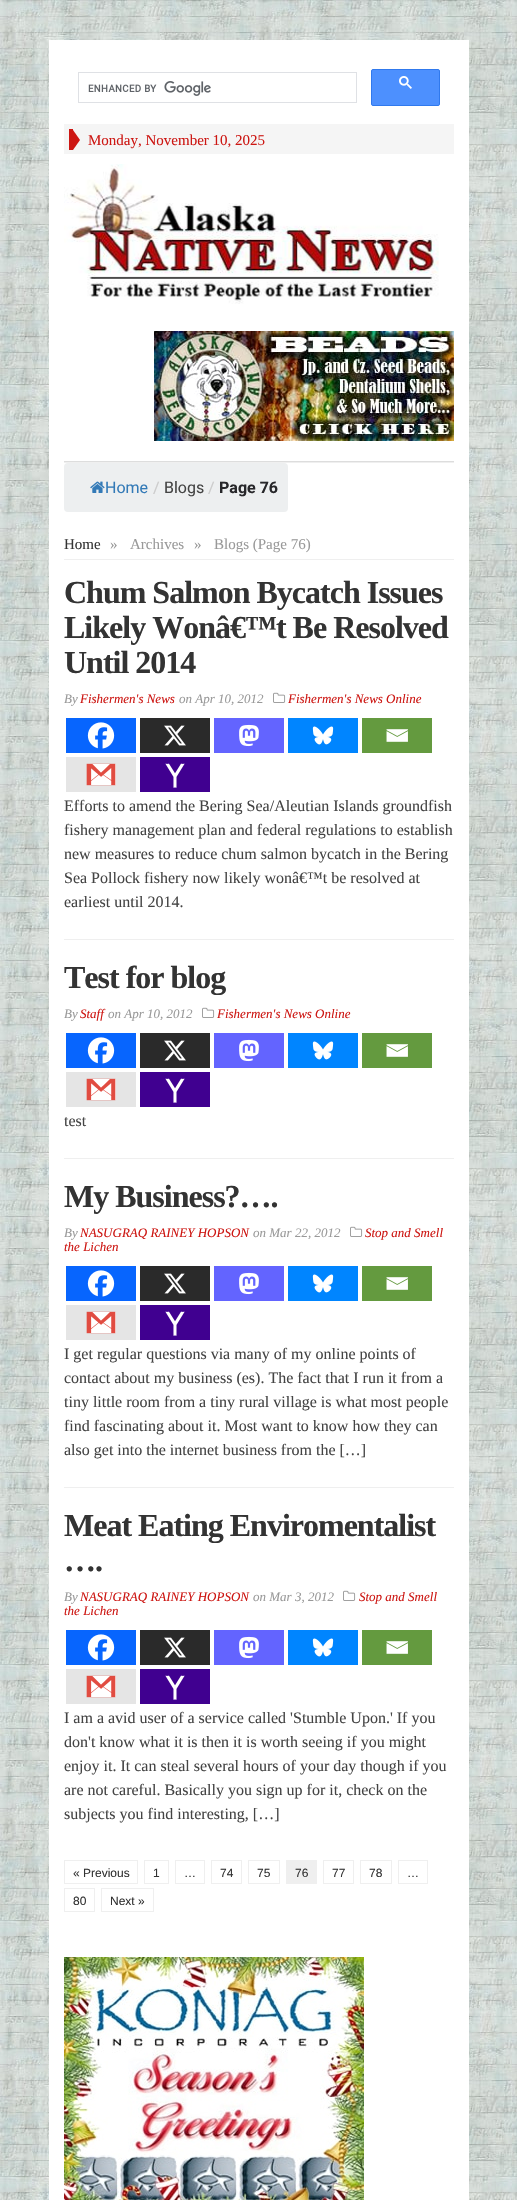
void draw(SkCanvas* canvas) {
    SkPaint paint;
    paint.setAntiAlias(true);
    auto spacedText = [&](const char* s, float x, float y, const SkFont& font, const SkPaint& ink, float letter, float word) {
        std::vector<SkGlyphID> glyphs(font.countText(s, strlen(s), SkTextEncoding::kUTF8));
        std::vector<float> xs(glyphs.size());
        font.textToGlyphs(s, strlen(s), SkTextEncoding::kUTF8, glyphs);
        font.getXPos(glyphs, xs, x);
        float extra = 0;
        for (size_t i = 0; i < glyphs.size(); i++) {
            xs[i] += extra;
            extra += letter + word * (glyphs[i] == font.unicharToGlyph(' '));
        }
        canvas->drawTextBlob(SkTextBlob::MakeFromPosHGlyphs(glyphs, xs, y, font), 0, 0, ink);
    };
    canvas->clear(0xFFFFFFFF);
    canvas->drawImageRect(SkImages::DeferredFromEncodedData(SkData::MakeFromFileName("img1.png")), SkRect::MakeXYWH(0, 0, 517, 2200), SkSamplingOptions());
    paint.setColor(0xFFFFFFFF);
    canvas->drawRect(SkRect::MakeXYWH(49, 40, 420, 2160), paint);
    paint.setStyle(SkPaint::kStroke_Style);
    paint.setStrokeWidth(1);
    paint.setColor(0xFFDFE1E5);
    canvas->drawRect(SkRect::MakeXYWH(78.5f, 72.5f, 278, 30), paint);
    canvas->drawImageRect(SkImages::DeferredFromEncodedData(SkData::MakeFromFileName("img2.png")), SkRect::MakeXYWH(88, 81, 123, 15), SkSamplingOptions());
    paint.setStyle(SkPaint::kFill_Style);
    paint.setColor(0xFF4D90FE);
    canvas->drawRoundRect(SkRect::MakeXYWH(371.5f, 69.5f, 68, 36), 1.5f, 1.5f, paint);
    paint.setStyle(SkPaint::kStroke_Style);
    paint.setColor(0xFF3079ED);
    canvas->drawRoundRect(SkRect::MakeXYWH(371.5f, 69.5f, 68, 36), 1.5f, 1.5f, paint);
    canvas->drawImageRect(SkImages::DeferredFromEncodedData(SkData::MakeFromFileName("img3.png")), SkRect::MakeXYWH(399, 76, 13, 13), SkSamplingOptions());
    paint.setStyle(SkPaint::kFill_Style);
    paint.setColor(0xFFF5F5F5);
    canvas->drawRect(SkRect::MakeXYWH(64, 124, 390, 30), paint);
    paint.setColor(0xFFCD1713);
    canvas->drawRect(SkRect::MakeXYWH(69, 129, 4, 21), paint);
    canvas->drawPath(SkPathBuilder().moveTo(73, 150).lineTo(73, 130).lineTo(80, 140).close().detach(), paint);
    SkFont font1(fontMgr->matchFamilyStyle("Liberation Serif", SkFontStyle::Normal()), 15);
    font1.setSubpixel(true);
    canvas->drawString("Monday, November 10, 2025", 88, 145, font1, paint);
    canvas->drawImageRect(SkImages::DeferredFromEncodedData(SkData::MakeFromFileName("img4.png")), SkRect::MakeXYWH(64, 164, 375, 140), SkSamplingOptions());
    canvas->drawImageRect(SkImages::DeferredFromEncodedData(SkData::MakeFromFileName("img5.png")), SkRect::MakeXYWH(154, 331, 300, 110), SkSamplingOptions());
    paint.setColor(0xFFDDDDDD);
    canvas->drawRect(SkRect::MakeXYWH(64, 461, 390, 1), paint);
    paint.setColor(0xFFEFEFEF);
    canvas->drawRect(SkRect::MakeXYWH(64, 462, 390, 1), paint);
    paint.setColor(0xFFEDEFF0);
    canvas->drawRoundRect(SkRect::MakeXYWH(64, 463, 224, 49), 4, 4, paint);
    canvas->drawImageRect(SkImages::DeferredFromEncodedData(SkData::MakeFromFileName("img6.png")), SkRect::MakeXYWH(90, 481, 15, 12), SkSamplingOptions());
    SkFont font2(fontMgr->matchFamilyStyle("Roboto", SkFontStyle::Normal()), 16);
    font2.setSubpixel(true);
    paint.setColor(0xFF337AB7);
    canvas->drawString("Home", 105, 493, font2, paint);
    paint.setColor(0xFFCCCCCC);
    canvas->drawString("/", 153, 493, font2, paint);
    paint.setColor(0xFF444444);
    canvas->drawString("Blogs", 164, 493, font2, paint);
    paint.setColor(0xFFCCCCCC);
    canvas->drawString("/", 208, 493, font2, paint);
    SkFont font3(fontMgr->matchFamilyStyle("Roboto", SkFontStyle::Bold()), 16);
    font3.setSubpixel(true);
    paint.setColor(0xFF27272A);
    canvas->drawString("Page 76", 219, 493, font3, paint);
    paint.setColor(0xFFEFEFEF);
    canvas->drawRect(SkRect::MakeXYWH(64, 559, 390, 1), paint);
    paint.setColor(0xFF333333);
    canvas->drawString("Home", 64, 549, font1, paint);
    paint.setColor(0xFF999999);
    canvas->drawString("»", 110, 549, font1, paint);
    canvas->drawString("Archives", 130, 549, font1, paint);
    canvas->drawString("»", 194, 549, font1, paint);
    canvas->drawString("Blogs (Page 76)", 214, 549, font1, paint);
    paint.setColor(0xFFEFEFEF);
    canvas->drawRect(SkRect::MakeXYWH(64, 939, 390, 1), paint);
    SkFont font4(fontMgr->matchFamilyStyle("Liberation Serif", SkFontStyle::Bold()), 32);
    font4.setSubpixel(true);
    paint.setColor(0xFF333333);
    spacedText("Chum Salmon Bycatch Issues", 64, 603, font4, paint, -1, 0);
    spacedText("Likely Wonâ€™t Be Resolved", 64, 638, font4, paint, -1, 0);
    spacedText("Until 2014", 64, 673, font4, paint, -1, 0);
    SkFont font5(fontMgr->matchFamilyStyle("Liberation Serif", SkFontStyle::Italic()), 13);
    font5.setSubpixel(true);
    paint.setColor(0xFF999999);
    canvas->drawString("By", 64, 703, font5, paint);
    paint.setColor(0xFFCD1713);
    canvas->drawString("Fishermen's News", 80, 703, font5, paint);
    paint.setColor(0xFF999999);
    canvas->drawString("on Apr 10, 2012", 179, 703, font5, paint);
    canvas->drawImageRect(SkImages::DeferredFromEncodedData(SkData::MakeFromFileName("img7.png")), SkRect::MakeXYWH(273, 692, 13, 11), SkSamplingOptions());
    paint.setColor(0xFFCD1713);
    canvas->drawString("Fishermen's News Online", 288, 703, font5, paint);
    paint.setColor(0xFF0765FE);
    canvas->drawRect(SkRect::MakeXYWH(66, 718, 70, 35), paint);
    canvas->drawImageRect(SkImages::DeferredFromEncodedData(SkData::MakeFromFileName("img8.png")), SkRect::MakeXYWH(87, 722, 28, 27), SkSamplingOptions());
    paint.setColor(0xFF2A2A2A);
    canvas->drawRect(SkRect::MakeXYWH(140, 718, 70, 35), paint);
    canvas->drawImageRect(SkImages::DeferredFromEncodedData(SkData::MakeFromFileName("img9.png")), SkRect::MakeXYWH(164, 725, 22, 21), SkSamplingOptions());
    paint.setColor(0xFF6364FF);
    canvas->drawRect(SkRect::MakeXYWH(214, 718, 70, 35), paint);
    canvas->drawImageRect(SkImages::DeferredFromEncodedData(SkData::MakeFromFileName("img10.png")), SkRect::MakeXYWH(239, 724, 20, 23), SkSamplingOptions());
    paint.setColor(0xFF0085FF);
    canvas->drawRect(SkRect::MakeXYWH(288, 718, 70, 35), paint);
    canvas->drawImageRect(SkImages::DeferredFromEncodedData(SkData::MakeFromFileName("img11.png")), SkRect::MakeXYWH(312, 726, 22, 19), SkSamplingOptions());
    paint.setColor(0xFF649A3F);
    canvas->drawRect(SkRect::MakeXYWH(362, 718, 70, 35), paint);
    canvas->drawImageRect(SkImages::DeferredFromEncodedData(SkData::MakeFromFileName("img12.png")), SkRect::MakeXYWH(386, 729, 22, 13), SkSamplingOptions());
    paint.setColor(0xFFE5E5E5);
    canvas->drawRect(SkRect::MakeXYWH(66, 757, 70, 35), paint);
    canvas->drawImageRect(SkImages::DeferredFromEncodedData(SkData::MakeFromFileName("img13.png")), SkRect::MakeXYWH(86, 763, 30, 23), SkSamplingOptions());
    paint.setColor(0xFF400090);
    canvas->drawRect(SkRect::MakeXYWH(140, 757, 70, 35), paint);
    canvas->drawImageRect(SkImages::DeferredFromEncodedData(SkData::MakeFromFileName("img14.png")), SkRect::MakeXYWH(165, 763, 20, 25), SkSamplingOptions());
    SkFont font6(fontMgr->matchFamilyStyle("Liberation Serif", SkFontStyle::Normal()), 16);
    font6.setSubpixel(true);
    paint.setColor(0xFF444444);
    canvas->drawString("Efforts to amend the Bering Sea/Aleutian Islands groundfish", 64, 811, font6, paint);
    canvas->drawString("fishery management plan and federal regulations to establish", 64, 835, font6, paint);
    canvas->drawString("new measures to reduce chum salmon bycatch in the Bering", 64, 859, font6, paint);
    canvas->drawString("Sea Pollock fishery now likely wonâ€™t be resolved at", 64, 883, font6, paint);
    canvas->drawString("earliest until 2014.", 64, 907, font6, paint);
    paint.setColor(0xFFEFEFEF);
    canvas->drawRect(SkRect::MakeXYWH(64, 1158, 390, 1), paint);
    paint.setColor(0xFF333333);
    spacedText("Test for blog", 64, 988, font4, paint, -1, 0);
    paint.setColor(0xFF999999);
    canvas->drawString("By", 64, 1018, font5, paint);
    paint.setColor(0xFFCD1713);
    canvas->drawString("Staff", 80, 1018, font5, paint);
    paint.setColor(0xFF999999);
    canvas->drawString("on Apr 10, 2012", 108, 1018, font5, paint);
    canvas->drawImageRect(SkImages::DeferredFromEncodedData(SkData::MakeFromFileName("img7.png")), SkRect::MakeXYWH(202, 1007, 13, 11), SkSamplingOptions());
    paint.setColor(0xFFCD1713);
    canvas->drawString("Fishermen's News Online", 217, 1018, font5, paint);
    paint.setColor(0xFF0765FE);
    canvas->drawRect(SkRect::MakeXYWH(66, 1033, 70, 35), paint);
    canvas->drawImageRect(SkImages::DeferredFromEncodedData(SkData::MakeFromFileName("img8.png")), SkRect::MakeXYWH(87, 1037, 28, 27), SkSamplingOptions());
    paint.setColor(0xFF2A2A2A);
    canvas->drawRect(SkRect::MakeXYWH(140, 1033, 70, 35), paint);
    canvas->drawImageRect(SkImages::DeferredFromEncodedData(SkData::MakeFromFileName("img9.png")), SkRect::MakeXYWH(164, 1040, 22, 21), SkSamplingOptions());
    paint.setColor(0xFF6364FF);
    canvas->drawRect(SkRect::MakeXYWH(214, 1033, 70, 35), paint);
    canvas->drawImageRect(SkImages::DeferredFromEncodedData(SkData::MakeFromFileName("img10.png")), SkRect::MakeXYWH(239, 1039, 20, 23), SkSamplingOptions());
    paint.setColor(0xFF0085FF);
    canvas->drawRect(SkRect::MakeXYWH(288, 1033, 70, 35), paint);
    canvas->drawImageRect(SkImages::DeferredFromEncodedData(SkData::MakeFromFileName("img11.png")), SkRect::MakeXYWH(312, 1041, 22, 19), SkSamplingOptions());
    paint.setColor(0xFF649A3F);
    canvas->drawRect(SkRect::MakeXYWH(362, 1033, 70, 35), paint);
    canvas->drawImageRect(SkImages::DeferredFromEncodedData(SkData::MakeFromFileName("img12.png")), SkRect::MakeXYWH(386, 1044, 22, 13), SkSamplingOptions());
    paint.setColor(0xFFE5E5E5);
    canvas->drawRect(SkRect::MakeXYWH(66, 1072, 70, 35), paint);
    canvas->drawImageRect(SkImages::DeferredFromEncodedData(SkData::MakeFromFileName("img13.png")), SkRect::MakeXYWH(86, 1078, 30, 23), SkSamplingOptions());
    paint.setColor(0xFF400090);
    canvas->drawRect(SkRect::MakeXYWH(140, 1072, 70, 35), paint);
    canvas->drawImageRect(SkImages::DeferredFromEncodedData(SkData::MakeFromFileName("img14.png")), SkRect::MakeXYWH(165, 1078, 20, 25), SkSamplingOptions());
    paint.setColor(0xFF444444);
    canvas->drawString("test", 64, 1126, font6, paint);
    paint.setColor(0xFFEFEFEF);
    canvas->drawRect(SkRect::MakeXYWH(64, 1487, 390, 1), paint);
    paint.setColor(0xFF333333);
    spacedText("My Business?….", 64, 1207, font4, paint, -1, 0);
    paint.setColor(0xFF999999);
    canvas->drawString("By", 64, 1237, font5, paint);
    canvas->drawImageRect(SkImages::DeferredFromEncodedData(SkData::MakeFromFileName("img7.png")), SkRect::MakeXYWH(350, 1226, 13, 11), SkSamplingOptions());
    paint.setColor(0xFFCD1713);
    canvas->drawString("Stop and Smell", 365, 1237, font5, paint);
    canvas->drawString("the Lichen", 64, 1251, font5, paint);
    canvas->drawString("NASUGRAQ RAINEY HOPSON", 80, 1237, font5, paint);
    paint.setColor(0xFF999999);
    canvas->drawString("on Mar 22, 2012", 253, 1237, font5, paint);
    paint.setColor(0xFF0765FE);
    canvas->drawRect(SkRect::MakeXYWH(66, 1266, 70, 35), paint);
    canvas->drawImageRect(SkImages::DeferredFromEncodedData(SkData::MakeFromFileName("img8.png")), SkRect::MakeXYWH(87, 1270, 28, 27), SkSamplingOptions());
    paint.setColor(0xFF2A2A2A);
    canvas->drawRect(SkRect::MakeXYWH(140, 1266, 70, 35), paint);
    canvas->drawImageRect(SkImages::DeferredFromEncodedData(SkData::MakeFromFileName("img9.png")), SkRect::MakeXYWH(164, 1273, 22, 21), SkSamplingOptions());
    paint.setColor(0xFF6364FF);
    canvas->drawRect(SkRect::MakeXYWH(214, 1266, 70, 35), paint);
    canvas->drawImageRect(SkImages::DeferredFromEncodedData(SkData::MakeFromFileName("img10.png")), SkRect::MakeXYWH(239, 1272, 20, 23), SkSamplingOptions());
    paint.setColor(0xFF0085FF);
    canvas->drawRect(SkRect::MakeXYWH(288, 1266, 70, 35), paint);
    canvas->drawImageRect(SkImages::DeferredFromEncodedData(SkData::MakeFromFileName("img11.png")), SkRect::MakeXYWH(312, 1274, 22, 19), SkSamplingOptions());
    paint.setColor(0xFF649A3F);
    canvas->drawRect(SkRect::MakeXYWH(362, 1266, 70, 35), paint);
    canvas->drawImageRect(SkImages::DeferredFromEncodedData(SkData::MakeFromFileName("img12.png")), SkRect::MakeXYWH(386, 1277, 22, 13), SkSamplingOptions());
    paint.setColor(0xFFE5E5E5);
    canvas->drawRect(SkRect::MakeXYWH(66, 1305, 70, 35), paint);
    canvas->drawImageRect(SkImages::DeferredFromEncodedData(SkData::MakeFromFileName("img13.png")), SkRect::MakeXYWH(86, 1311, 30, 23), SkSamplingOptions());
    paint.setColor(0xFF400090);
    canvas->drawRect(SkRect::MakeXYWH(140, 1305, 70, 35), paint);
    canvas->drawImageRect(SkImages::DeferredFromEncodedData(SkData::MakeFromFileName("img14.png")), SkRect::MakeXYWH(165, 1311, 20, 25), SkSamplingOptions());
    paint.setColor(0xFF444444);
    canvas->drawString("I get regular questions via many of my online points of", 64, 1359, font6, paint);
    canvas->drawString("contact about my business (es). The fact that I run it from a", 64, 1383, font6, paint);
    canvas->drawString("tiny little room from a tiny rural village is what most people", 64, 1407, font6, paint);
    canvas->drawString("find fascinating about it. Most want to know how they can", 64, 1431, font6, paint);
    canvas->drawString("also get into the internet business from the […]", 64, 1455, font6, paint);
    paint.setColor(0xFF333333);
    spacedText("Meat Eating Enviromentalist", 64, 1536, font4, paint, -1, 0);
    spacedText("….", 64, 1571, font4, paint, -1, 0);
    paint.setColor(0xFF999999);
    canvas->drawString("By", 64, 1601, font5, paint);
    canvas->drawImageRect(SkImages::DeferredFromEncodedData(SkData::MakeFromFileName("img7.png")), SkRect::MakeXYWH(343, 1590, 13, 11), SkSamplingOptions());
    paint.setColor(0xFFCD1713);
    canvas->drawString("Stop and Smell", 359, 1601, font5, paint);
    canvas->drawString("the Lichen", 64, 1615, font5, paint);
    canvas->drawString("NASUGRAQ RAINEY HOPSON", 80, 1601, font5, paint);
    paint.setColor(0xFF999999);
    canvas->drawString("on Mar 3, 2012", 253, 1601, font5, paint);
    paint.setColor(0xFF0765FE);
    canvas->drawRect(SkRect::MakeXYWH(66, 1630, 70, 35), paint);
    canvas->drawImageRect(SkImages::DeferredFromEncodedData(SkData::MakeFromFileName("img8.png")), SkRect::MakeXYWH(87, 1634, 28, 27), SkSamplingOptions());
    paint.setColor(0xFF2A2A2A);
    canvas->drawRect(SkRect::MakeXYWH(140, 1630, 70, 35), paint);
    canvas->drawImageRect(SkImages::DeferredFromEncodedData(SkData::MakeFromFileName("img9.png")), SkRect::MakeXYWH(164, 1637, 22, 21), SkSamplingOptions());
    paint.setColor(0xFF6364FF);
    canvas->drawRect(SkRect::MakeXYWH(214, 1630, 70, 35), paint);
    canvas->drawImageRect(SkImages::DeferredFromEncodedData(SkData::MakeFromFileName("img10.png")), SkRect::MakeXYWH(239, 1636, 20, 23), SkSamplingOptions());
    paint.setColor(0xFF0085FF);
    canvas->drawRect(SkRect::MakeXYWH(288, 1630, 70, 35), paint);
    canvas->drawImageRect(SkImages::DeferredFromEncodedData(SkData::MakeFromFileName("img11.png")), SkRect::MakeXYWH(312, 1638, 22, 19), SkSamplingOptions());
    paint.setColor(0xFF649A3F);
    canvas->drawRect(SkRect::MakeXYWH(362, 1630, 70, 35), paint);
    canvas->drawImageRect(SkImages::DeferredFromEncodedData(SkData::MakeFromFileName("img12.png")), SkRect::MakeXYWH(386, 1641, 22, 13), SkSamplingOptions());
    paint.setColor(0xFFE5E5E5);
    canvas->drawRect(SkRect::MakeXYWH(66, 1669, 70, 35), paint);
    canvas->drawImageRect(SkImages::DeferredFromEncodedData(SkData::MakeFromFileName("img13.png")), SkRect::MakeXYWH(86, 1675, 30, 23), SkSamplingOptions());
    paint.setColor(0xFF400090);
    canvas->drawRect(SkRect::MakeXYWH(140, 1669, 70, 35), paint);
    canvas->drawImageRect(SkImages::DeferredFromEncodedData(SkData::MakeFromFileName("img14.png")), SkRect::MakeXYWH(165, 1675, 20, 25), SkSamplingOptions());
    paint.setColor(0xFF444444);
    canvas->drawString("I am a avid user of a service called 'Stumble Upon.' If you", 64, 1723, font6, paint);
    canvas->drawString("don't know what it is then it is worth seeing if you might", 64, 1747, font6, paint);
    canvas->drawString("enjoy it. It can steal several hours of your day though if you", 64, 1771, font6, paint);
    canvas->drawString("are not careful. Basically you sign up for it, check on the", 64, 1795, font6, paint);
    canvas->drawString("subjects you find interesting, […]", 64, 1819, font6, paint);
    paint.setStyle(SkPaint::kStroke_Style);
    paint.setColor(0xFFEFEFEF);
    canvas->drawRect(SkRect::MakeXYWH(64.5f, 1860.5f, 73, 23), paint);
    SkFont font7(fontMgr->matchFamilyStyle("Liberation Sans", SkFontStyle::Normal()), 12);
    font7.setSubpixel(true);
    paint.setStyle(SkPaint::kFill_Style);
    paint.setColor(0xFF333333);
    canvas->drawString("« Previous", 73, 1877, font7, paint);
    paint.setStyle(SkPaint::kStroke_Style);
    paint.setColor(0xFFEFEFEF);
    canvas->drawRect(SkRect::MakeXYWH(144.5f, 1860.5f, 24, 23), paint);
    paint.setStyle(SkPaint::kFill_Style);
    paint.setColor(0xFF333333);
    canvas->drawString("1", 153, 1877, font7, paint);
    paint.setStyle(SkPaint::kStroke_Style);
    paint.setColor(0xFFEFEFEF);
    canvas->drawRect(SkRect::MakeXYWH(175.5f, 1860.5f, 29, 23), paint);
    paint.setStyle(SkPaint::kFill_Style);
    paint.setColor(0xFF333333);
    canvas->drawString("…", 184, 1877, font7, paint);
    paint.setStyle(SkPaint::kStroke_Style);
    paint.setColor(0xFFEFEFEF);
    canvas->drawRect(SkRect::MakeXYWH(211.5f, 1860.5f, 30, 23), paint);
    paint.setStyle(SkPaint::kFill_Style);
    paint.setColor(0xFF333333);
    canvas->drawString("74", 220, 1877, font7, paint);
    paint.setStyle(SkPaint::kStroke_Style);
    paint.setColor(0xFFEFEFEF);
    canvas->drawRect(SkRect::MakeXYWH(248.5f, 1860.5f, 31, 23), paint);
    paint.setStyle(SkPaint::kFill_Style);
    paint.setColor(0xFF333333);
    canvas->drawString("75", 257, 1877, font7, paint);
    paint.setColor(0xFFEFEFEF);
    canvas->drawRect(SkRect::MakeXYWH(286, 1860, 31, 24), paint);
    paint.setColor(0xFF333333);
    canvas->drawString("76", 295, 1877, font7, paint);
    paint.setStyle(SkPaint::kStroke_Style);
    paint.setColor(0xFFEFEFEF);
    canvas->drawRect(SkRect::MakeXYWH(323.5f, 1860.5f, 30, 23), paint);
    paint.setStyle(SkPaint::kFill_Style);
    paint.setColor(0xFF333333);
    canvas->drawString("77", 332, 1877, font7, paint);
    paint.setStyle(SkPaint::kStroke_Style);
    paint.setColor(0xFFEFEFEF);
    canvas->drawRect(SkRect::MakeXYWH(360.5f, 1860.5f, 31, 23), paint);
    paint.setStyle(SkPaint::kFill_Style);
    paint.setColor(0xFF333333);
    canvas->drawString("78", 369, 1877, font7, paint);
    paint.setStyle(SkPaint::kStroke_Style);
    paint.setColor(0xFFEFEFEF);
    canvas->drawRect(SkRect::MakeXYWH(398.5f, 1860.5f, 29, 23), paint);
    paint.setStyle(SkPaint::kFill_Style);
    paint.setColor(0xFF333333);
    canvas->drawString("…", 407, 1877, font7, paint);
    paint.setStyle(SkPaint::kStroke_Style);
    paint.setColor(0xFFEFEFEF);
    canvas->drawRect(SkRect::MakeXYWH(64.5f, 1888.5f, 30, 23), paint);
    paint.setStyle(SkPaint::kFill_Style);
    paint.setColor(0xFF333333);
    canvas->drawString("80", 73, 1905, font7, paint);
    paint.setStyle(SkPaint::kStroke_Style);
    paint.setColor(0xFFEFEFEF);
    canvas->drawRect(SkRect::MakeXYWH(101.5f, 1888.5f, 52, 23), paint);
    paint.setStyle(SkPaint::kFill_Style);
    paint.setColor(0xFF333333);
    canvas->drawString("Next »", 110, 1905, font7, paint);
    canvas->drawImageRect(SkImages::DeferredFromEncodedData(SkData::MakeFromFileName("img15.png")), SkRect::MakeXYWH(64, 1957, 300, 243), SkSamplingOptions());
}
